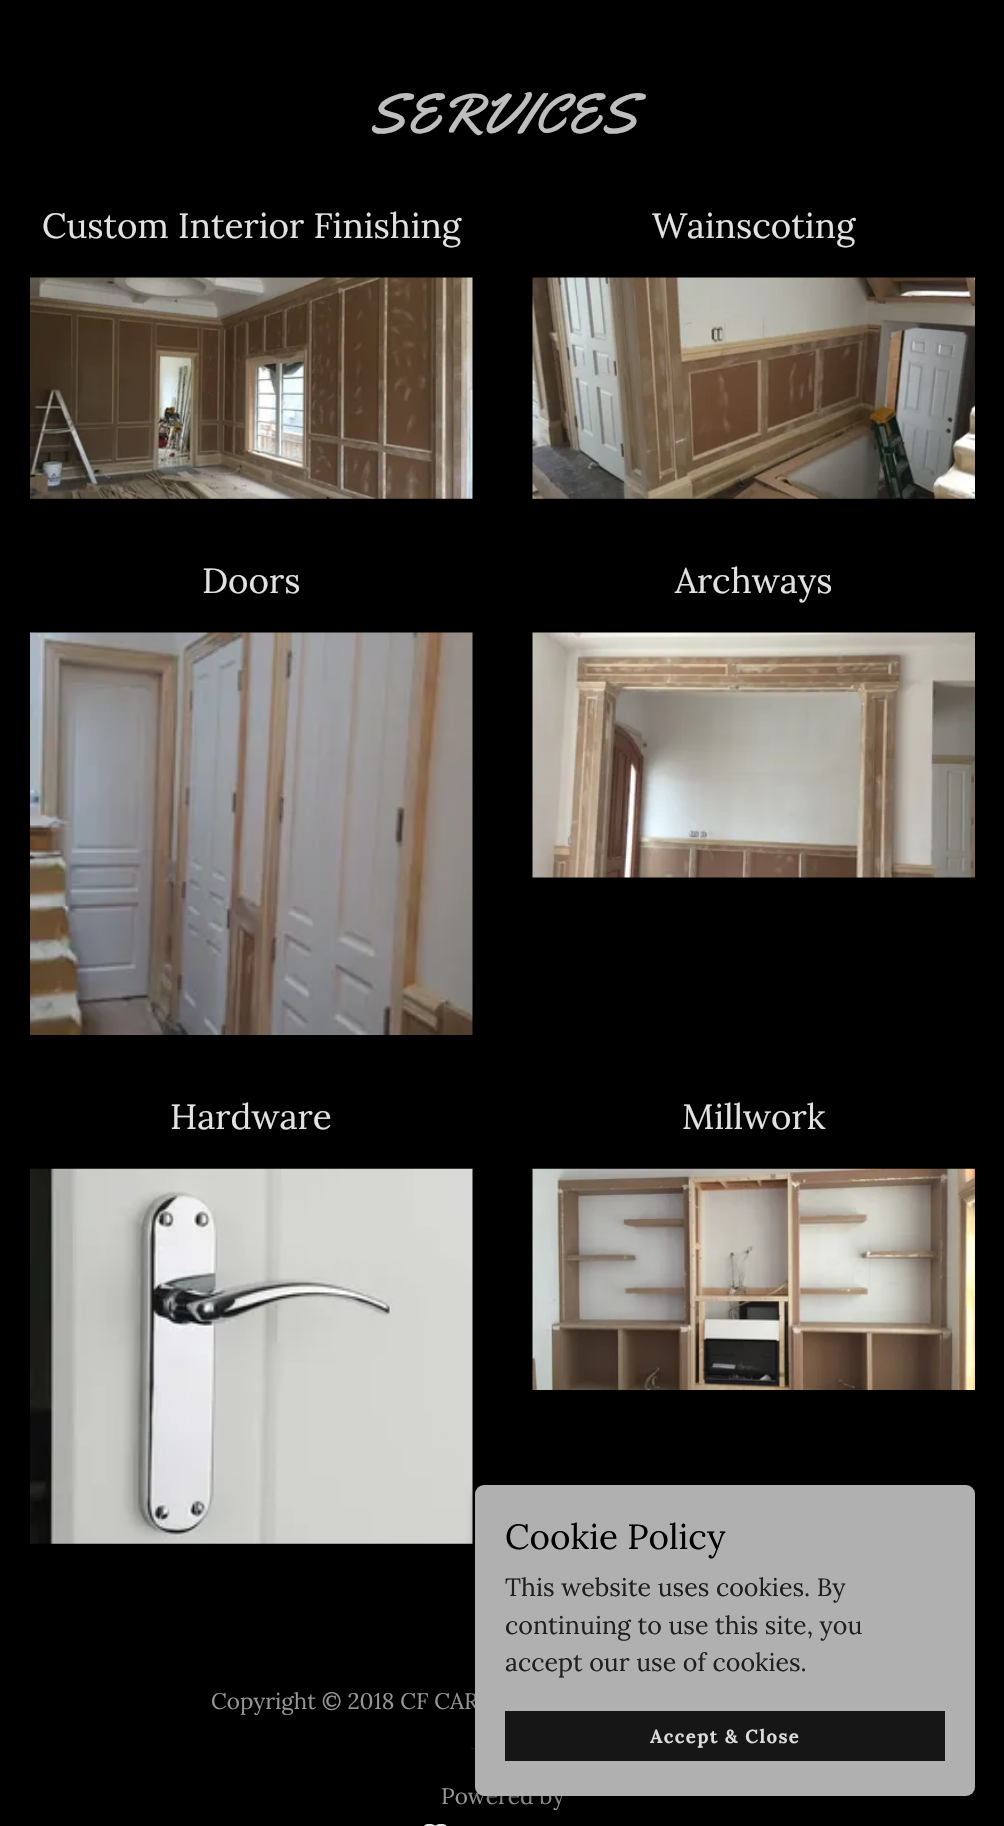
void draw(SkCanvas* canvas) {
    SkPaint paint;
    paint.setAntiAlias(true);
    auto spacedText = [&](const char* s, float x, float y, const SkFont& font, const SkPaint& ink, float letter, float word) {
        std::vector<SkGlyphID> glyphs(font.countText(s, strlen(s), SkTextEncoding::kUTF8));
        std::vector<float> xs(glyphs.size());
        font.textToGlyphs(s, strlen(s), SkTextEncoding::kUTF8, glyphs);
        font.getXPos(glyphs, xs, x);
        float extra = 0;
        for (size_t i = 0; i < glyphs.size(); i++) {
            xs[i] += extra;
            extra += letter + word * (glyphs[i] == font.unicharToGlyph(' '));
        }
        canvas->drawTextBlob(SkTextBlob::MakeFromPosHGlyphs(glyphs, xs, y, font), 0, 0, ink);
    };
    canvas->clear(0xFF000000);
    SkFont font1(fontMgr->matchFamilyStyle("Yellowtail", SkFontStyle::Normal()), 56.25f);
    font1.setSubpixel(true);
    paint.setColor(0xFFBEBEBE);
    canvas->drawString("SERVICES", 368, 133, font1, paint);
    SkFont font2(fontMgr->matchFamilyStyle("Lora", SkFontStyle::Normal()), 35);
    font2.setSubpixel(true);
    paint.setColor(0xFFE2E2E2);
    canvas->drawString("Custom Interior Finishing", 42, 238, font2, paint);
    canvas->drawImageRect(SkImages::DeferredFromEncodedData(SkData::MakeFromFileName("img1.png")), SkRect::MakeXYWH(30, 277, 443, 222), SkSamplingOptions());
    canvas->drawString("Wainscoting", 652, 238, font2, paint);
    canvas->drawImageRect(SkImages::DeferredFromEncodedData(SkData::MakeFromFileName("img2.png")), SkRect::MakeXYWH(532, 277, 443, 222), SkSamplingOptions());
    canvas->drawString("Doors", 202, 593, font2, paint);
    canvas->drawImageRect(SkImages::DeferredFromEncodedData(SkData::MakeFromFileName("img3.png")), SkRect::MakeXYWH(30, 632, 443, 403), SkSamplingOptions());
    canvas->drawString("Archways", 675, 593, font2, paint);
    canvas->drawImageRect(SkImages::DeferredFromEncodedData(SkData::MakeFromFileName("img4.png")), SkRect::MakeXYWH(532, 632, 443, 246), SkSamplingOptions());
    canvas->drawString("Hardware", 170, 1129, font2, paint);
    canvas->drawImageRect(SkImages::DeferredFromEncodedData(SkData::MakeFromFileName("img5.png")), SkRect::MakeXYWH(30, 1168, 443, 376), SkSamplingOptions());
    canvas->drawString("Millwork", 682, 1129, font2, paint);
    canvas->drawImageRect(SkImages::DeferredFromEncodedData(SkData::MakeFromFileName("img6.png")), SkRect::MakeXYWH(532, 1168, 443, 222), SkSamplingOptions());
    SkFont font3(fontMgr->matchFamilyStyle("Lora", SkFontStyle::Normal()), 22.5f);
    font3.setSubpixel(true);
    paint.setColor(0xFF969696);
    canvas->drawString("Copyright © 2018 CF CAR", 211, 1709, font3, paint);
    paint.setColor(0xFF1B1B1B);
    canvas->drawRect(SkRect::MakeXYWH(471, 1748, 4, 1), paint);
    paint.setColor(0xFF969696);
    canvas->drawString("Powered by", 441, 1804, font3, paint);
    canvas->drawImageRect(SkImages::DeferredFromEncodedData(SkData::MakeFromFileName("img7.png")), SkRect::MakeXYWH(424, 1824, 23, 2), SkSamplingOptions());
    paint.setColor(0x4D000000);
    paint.setMaskFilter(SkMaskFilter::MakeBlur(kNormal_SkBlurStyle, 4));
    canvas->drawRoundRect(SkRect::MakeXYWH(475, 1488, 500, 311), 9, 9, paint);
    paint.setMaskFilter(nullptr);
    paint.setColor(0xFFB0B0B0);
    canvas->drawRoundRect(SkRect::MakeXYWH(475, 1485, 500, 311), 9, 9, paint);
    paint.setColor(0xFF000000);
    canvas->drawString("Cookie Policy", 505, 1549, font2, paint);
    SkFont font4(fontMgr->matchFamilyStyle("Lora", SkFontStyle::Normal()), 25);
    font4.setSubpixel(true);
    paint.setColor(0xFF1F1F1F);
    canvas->drawString("This website uses cookies. By", 505, 1596, font4, paint);
    canvas->drawString("continuing to use this site, you", 505, 1634, font4, paint);
    canvas->drawString("accept our use of cookies.", 505, 1671, font4, paint);
    paint.setColor(0xFF161616);
    canvas->drawRect(SkRect::MakeXYWH(505, 1711, 440, 50), paint);
    SkFont font5(fontMgr->matchFamilyStyle("Lora", SkFontStyle::Bold()), 18.75f);
    font5.setSubpixel(true);
    paint.setColor(0xFFDBDBDB);
    spacedText("Accept & Close", 650, 1743, font5, paint, 1.3f, 0);
}
